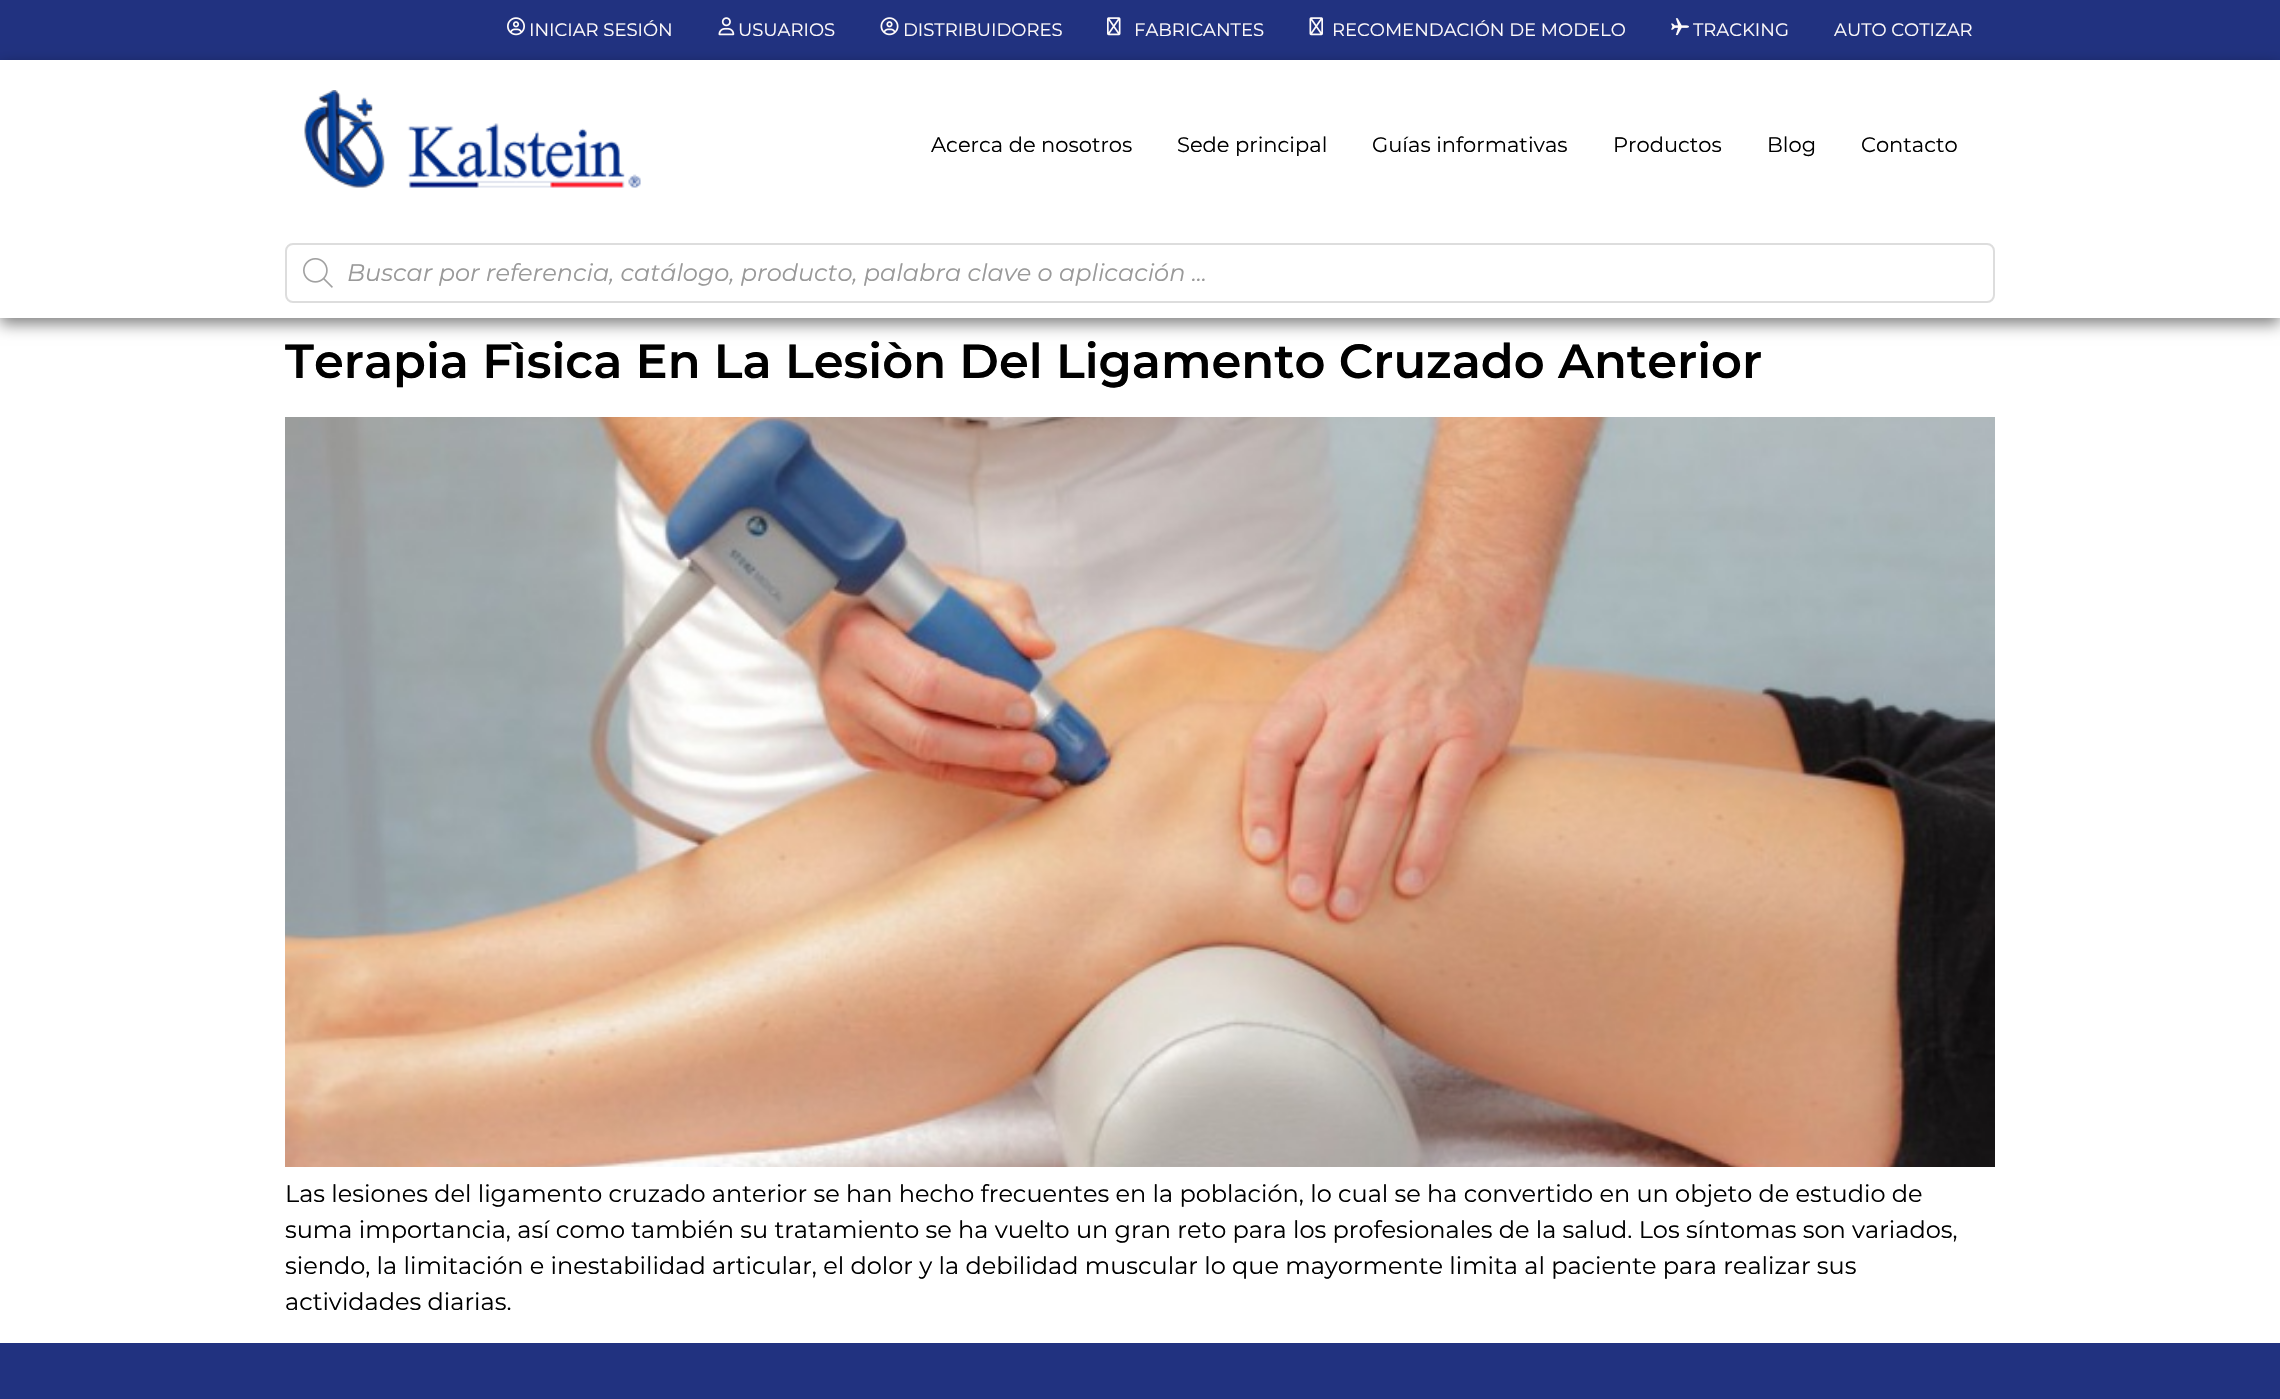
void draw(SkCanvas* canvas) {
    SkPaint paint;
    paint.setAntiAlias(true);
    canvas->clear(0xFFFFFFFF);
    paint.setColor(0xFF213280);
    canvas->drawRect(SkRect::MakeXYWH(0, 0, 2280, 60), paint);
    canvas->drawImageRect(SkImages::DeferredFromEncodedData(SkData::MakeFromFileName("img1.png")), SkRect::MakeXYWH(507, 17, 18, 19), SkSamplingOptions());
    SkFont font1(fontMgr->matchFamilyStyle("Montserrat", SkFontStyle::Normal()), 18);
    font1.setSubpixel(true);
    paint.setColor(0xFFFFFBFB);
    canvas->drawString("INICIAR SESIÓN", 529, 36, font1, paint);
    canvas->drawImageRect(SkImages::DeferredFromEncodedData(SkData::MakeFromFileName("img2.png")), SkRect::MakeXYWH(718, 17, 17, 19), SkSamplingOptions());
    canvas->drawString("USUARIOS", 738, 36, font1, paint);
    canvas->drawImageRect(SkImages::DeferredFromEncodedData(SkData::MakeFromFileName("img3.png")), SkRect::MakeXYWH(880, 17, 19, 19), SkSamplingOptions());
    canvas->drawString("DISTRIBUIDORES", 903, 36, font1, paint);
    canvas->drawImageRect(SkImages::DeferredFromEncodedData(SkData::MakeFromFileName("img4.png")), SkRect::MakeXYWH(1107, 17, 14, 19), SkSamplingOptions());
    canvas->drawString("FABRICANTES", 1134, 36, font1, paint);
    canvas->drawImageRect(SkImages::DeferredFromEncodedData(SkData::MakeFromFileName("img5.png")), SkRect::MakeXYWH(1309, 17, 14, 19), SkSamplingOptions());
    canvas->drawString("RECOMENDACIÓN DE MODELO", 1332, 36, font1, paint);
    canvas->drawImageRect(SkImages::DeferredFromEncodedData(SkData::MakeFromFileName("img6.png")), SkRect::MakeXYWH(1671, 18, 18, 18), SkSamplingOptions());
    canvas->drawString("TRACKING", 1693, 36, font1, paint);
    canvas->drawString("AUTO COTIZAR", 1834, 36, font1, paint);
    canvas->save();
    canvas->clipPath(SkPathBuilder(SkPathFillType::kEvenOdd).moveTo(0, 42).lineTo(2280, 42).lineTo(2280, 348).lineTo(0, 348).close().moveTo(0, 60).lineTo(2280, 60).lineTo(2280, 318).lineTo(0, 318).close().detach(), true);
    paint.setColor(0x80000000);
    paint.setMaskFilter(SkMaskFilter::MakeBlur(kNormal_SkBlurStyle, 7.5f));
    canvas->drawRect(SkRect::MakeXYWH(0, 66, 2280, 258), paint);
    paint.setMaskFilter(nullptr);
    canvas->restore();
    canvas->drawImageRect(SkImages::DeferredFromEncodedData(SkData::MakeFromFileName("img7.png")), SkRect::MakeXYWH(304, 90, 337, 98), SkSamplingOptions());
    SkFont font2(fontMgr->matchFamilyStyle("Montserrat", SkFontStyle::Normal()), 21);
    font2.setSubpixel(true);
    paint.setColor(0xFF000000);
    canvas->drawString("Acerca de nosotros", 931, 152, font2, paint);
    canvas->drawString("Sede principal", 1177, 152, font2, paint);
    canvas->drawString("Guías informativas", 1372, 152, font2, paint);
    canvas->drawString("Productos", 1613, 152, font2, paint);
    canvas->drawString("Blog", 1767, 152, font2, paint);
    canvas->drawString("Contacto", 1861, 152, font2, paint);
    paint.setStyle(SkPaint::kStroke_Style);
    paint.setStrokeWidth(2);
    paint.setColor(0xFFDDDDDD);
    canvas->drawRoundRect(SkRect::MakeXYWH(286, 244, 1708, 58), 7, 7, paint);
    canvas->drawImageRect(SkImages::DeferredFromEncodedData(SkData::MakeFromFileName("img8.png")), SkRect::MakeXYWH(303, 258, 30, 30), SkSamplingOptions());
    SkFont font3(fontMgr->matchFamilyStyle("Montserrat", SkFontStyle::Italic()), 24);
    font3.setSubpixel(true);
    paint.setStyle(SkPaint::kFill_Style);
    paint.setColor(0xFF999999);
    canvas->drawString("Buscar por referencia, catálogo, producto, palabra clave o aplicación ...", 347, 281, font3, paint);
    SkFont font4(fontMgr->matchFamilyStyle("Montserrat", SkFontStyle(600, SkFontStyle::kNormal_Width, SkFontStyle::kUpright_Slant)), 48);
    font4.setSubpixel(true);
    paint.setColor(0xFF000000);
    canvas->drawString("Terapia Fìsica En La Lesiòn Del Ligamento Cruzado Anterior", 285, 378, font4, paint);
    canvas->drawImageRect(SkImages::DeferredFromEncodedData(SkData::MakeFromFileName("img9.png")), SkRect::MakeXYWH(285, 417, 1710, 750), SkSamplingOptions());
    SkFont font5(fontMgr->matchFamilyStyle("Montserrat", SkFontStyle::Normal()), 24);
    font5.setSubpixel(true);
    canvas->drawString("Las lesiones del ligamento cruzado anterior se han hecho frecuentes en la población, lo cual se ha convertido en un objeto de estudio de", 285, 1202, font5, paint);
    canvas->drawString("suma importancia, así como también su tratamiento se ha vuelto un gran reto para los profesionales de la salud. Los síntomas son variados,", 285, 1238, font5, paint);
    canvas->drawString("siendo, la limitación e inestabilidad articular, el dolor y la debilidad muscular lo que mayormente limita al paciente para realizar sus", 285, 1274, font5, paint);
    canvas->drawString("actividades diarias.", 285, 1310, font5, paint);
    paint.setColor(0xFF213280);
    canvas->drawRect(SkRect::MakeXYWH(0, 1343, 2280, 56), paint);
}
